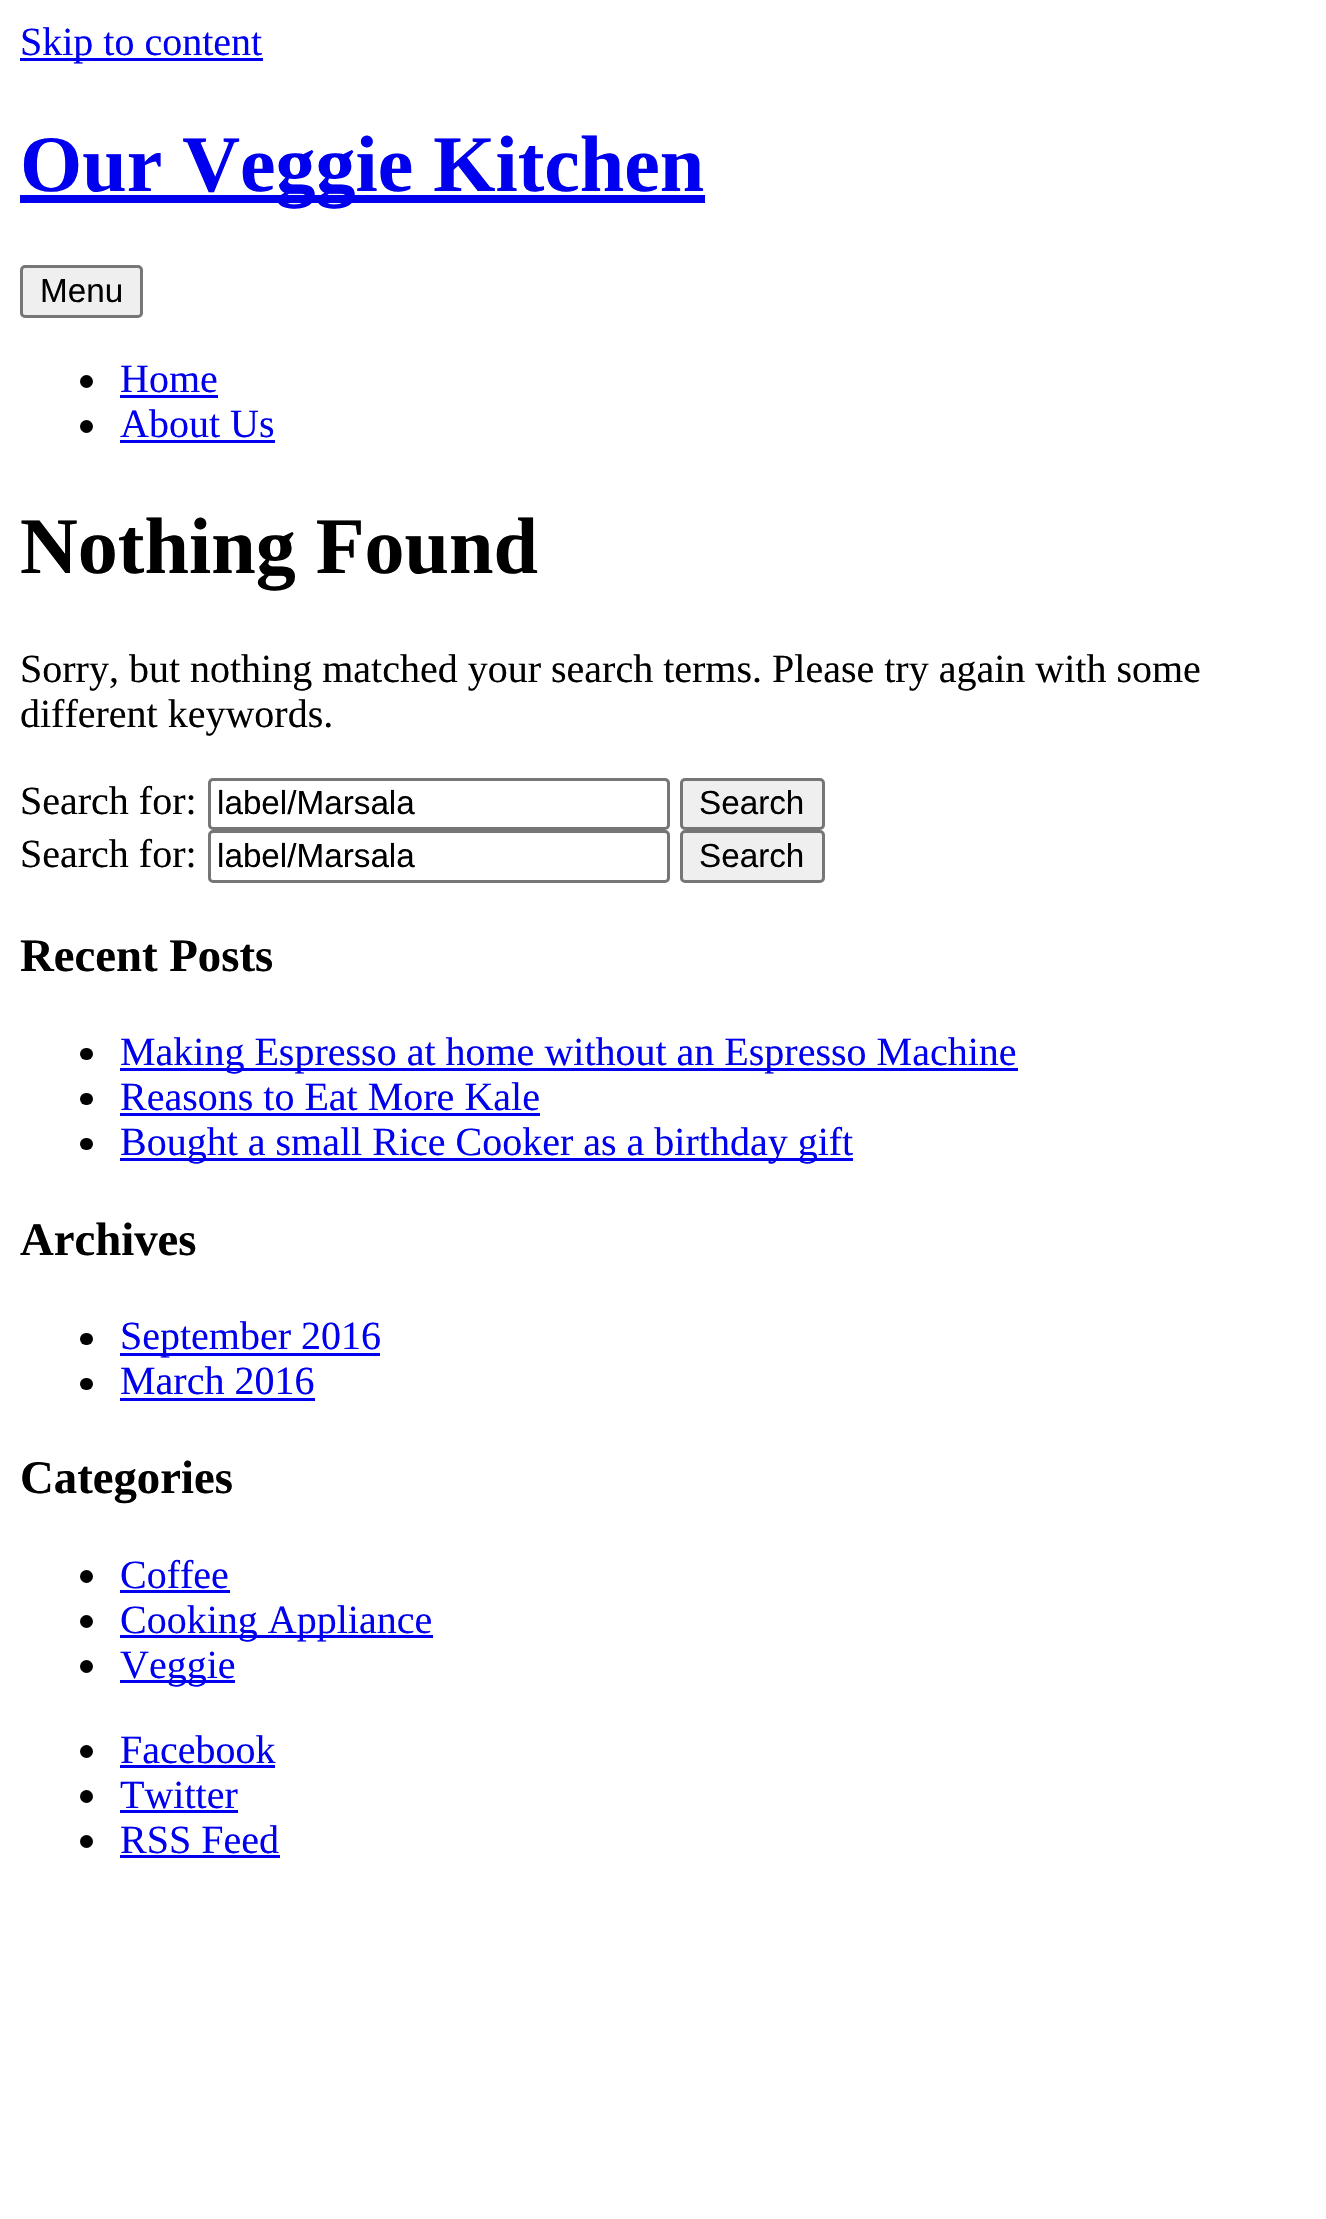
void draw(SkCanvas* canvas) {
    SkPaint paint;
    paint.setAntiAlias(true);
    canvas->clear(0xFFFFFFFF);
    paint.setColor(0xFF0000EE);
    canvas->drawRect(SkRect::MakeXYWH(20, 58, 243, 3), paint);
    SkFont font1(fontMgr->matchFamilyStyle("Liberation Serif", SkFontStyle::Normal()), 40);
    font1.setSubpixel(true);
    canvas->drawString("Skip to content", 20, 55, font1, paint);
    canvas->drawRect(SkRect::MakeXYWH(20, 195, 685, 8), paint);
    SkFont font2(fontMgr->matchFamilyStyle("Liberation Serif", SkFontStyle::Bold()), 80);
    font2.setSubpixel(true);
    canvas->drawString("Our Veggie Kitchen", 20, 191, font2, paint);
    paint.setColor(0xFFEFEFEF);
    canvas->drawRoundRect(SkRect::MakeXYWH(21.5f, 266.5f, 120, 50), 3.5f, 3.5f, paint);
    paint.setStyle(SkPaint::kStroke_Style);
    paint.setStrokeWidth(3);
    paint.setColor(0xFF767676);
    canvas->drawRoundRect(SkRect::MakeXYWH(21.5f, 266.5f, 120, 50), 3.5f, 3.5f, paint);
    SkFont font3(fontMgr->matchFamilyStyle("Liberation Sans", SkFontStyle::Normal()), 33.25f);
    font3.setSubpixel(true);
    paint.setStyle(SkPaint::kFill_Style);
    paint.setColor(0xFF000000);
    canvas->drawString("Menu", 40, 302, font3, paint);
    canvas->drawCircle(86.5f, 381.5f, 6.5f, paint);
    paint.setColor(0xFF0000EE);
    canvas->drawString("Home", 120, 392, font1, paint);
    canvas->drawRect(SkRect::MakeXYWH(120, 395, 98, 3), paint);
    paint.setColor(0xFF000000);
    canvas->drawCircle(86.5f, 426.5f, 6.5f, paint);
    paint.setColor(0xFF0000EE);
    canvas->drawString("About Us", 120, 437, font1, paint);
    canvas->drawRect(SkRect::MakeXYWH(120, 440, 155, 3), paint);
    paint.setColor(0xFF000000);
    canvas->drawString("Nothing Found", 20, 573, font2, paint);
    canvas->drawString("Sorry, but nothing matched your search terms. Please try again with some", 20, 682, font1, paint);
    canvas->drawString("different keywords.", 20, 727, font1, paint);
    canvas->drawString("Search for:", 20, 814, font1, paint);
    paint.setStyle(SkPaint::kStroke_Style);
    paint.setColor(0xFF767676);
    canvas->drawRoundRect(SkRect::MakeXYWH(209.5f, 779.5f, 459, 49), 3.5f, 3.5f, paint);
    paint.setStyle(SkPaint::kFill_Style);
    paint.setColor(0xFF000000);
    canvas->drawString("label/Marsala", 217, 814, font3, paint);
    paint.setColor(0xFFEFEFEF);
    canvas->drawRoundRect(SkRect::MakeXYWH(681.5f, 779.5f, 142, 49), 3.5f, 3.5f, paint);
    paint.setStyle(SkPaint::kStroke_Style);
    paint.setColor(0xFF767676);
    canvas->drawRoundRect(SkRect::MakeXYWH(681.5f, 779.5f, 142, 49), 3.5f, 3.5f, paint);
    paint.setStyle(SkPaint::kFill_Style);
    paint.setColor(0xFF000000);
    canvas->drawString("Search", 699, 814, font3, paint);
    canvas->drawString("Search for:", 20, 867, font1, paint);
    paint.setStyle(SkPaint::kStroke_Style);
    paint.setColor(0xFF767676);
    canvas->drawRoundRect(SkRect::MakeXYWH(209.5f, 831.5f, 459, 50), 3.5f, 3.5f, paint);
    paint.setStyle(SkPaint::kFill_Style);
    paint.setColor(0xFF000000);
    canvas->drawString("label/Marsala", 217, 867, font3, paint);
    paint.setColor(0xFFEFEFEF);
    canvas->drawRoundRect(SkRect::MakeXYWH(681.5f, 831.5f, 142, 50), 3.5f, 3.5f, paint);
    paint.setStyle(SkPaint::kStroke_Style);
    paint.setColor(0xFF767676);
    canvas->drawRoundRect(SkRect::MakeXYWH(681.5f, 831.5f, 142, 50), 3.5f, 3.5f, paint);
    paint.setStyle(SkPaint::kFill_Style);
    paint.setColor(0xFF000000);
    canvas->drawString("Search", 699, 867, font3, paint);
    SkFont font4(fontMgr->matchFamilyStyle("Liberation Serif", SkFontStyle::Bold()), 46.75f);
    font4.setSubpixel(true);
    canvas->drawString("Recent Posts", 20, 971, font4, paint);
    canvas->drawRoundRect(SkRect::MakeXYWH(80, 1048, 13, 12), 6, 6, paint);
    paint.setColor(0xFF0000EE);
    canvas->drawRect(SkRect::MakeXYWH(120, 1068, 898, 3), paint);
    canvas->drawString("Making Espresso at home without an Espresso Machine", 120, 1065, font1, paint);
    paint.setColor(0xFF000000);
    canvas->drawRoundRect(SkRect::MakeXYWH(80, 1093, 13, 12), 6, 6, paint);
    paint.setColor(0xFF0000EE);
    canvas->drawString("Reasons to Eat More Kale", 120, 1110, font1, paint);
    canvas->drawRect(SkRect::MakeXYWH(120, 1113, 420, 3), paint);
    paint.setColor(0xFF000000);
    canvas->drawRoundRect(SkRect::MakeXYWH(80, 1138, 13, 12), 6, 6, paint);
    paint.setColor(0xFF0000EE);
    canvas->drawRect(SkRect::MakeXYWH(120, 1158, 733, 3), paint);
    canvas->drawString("Bought a small Rice Cooker as a birthday gift", 120, 1155, font1, paint);
    paint.setColor(0xFF000000);
    canvas->drawString("Archives", 20, 1255, font4, paint);
    canvas->drawRoundRect(SkRect::MakeXYWH(80, 1333, 13, 12), 6, 6, paint);
    paint.setColor(0xFF0000EE);
    canvas->drawRect(SkRect::MakeXYWH(120, 1353, 260, 3), paint);
    canvas->drawString("September 2016", 120, 1349, font1, paint);
    paint.setColor(0xFF000000);
    canvas->drawRoundRect(SkRect::MakeXYWH(80, 1378, 13, 12), 6, 6, paint);
    paint.setColor(0xFF0000EE);
    canvas->drawString("March 2016", 120, 1394, font1, paint);
    canvas->drawRect(SkRect::MakeXYWH(120, 1398, 195, 3), paint);
    paint.setColor(0xFF000000);
    canvas->drawString("Categories", 20, 1493, font4, paint);
    canvas->drawCircle(86.5f, 1576.5f, 6.5f, paint);
    paint.setColor(0xFF0000EE);
    canvas->drawString("Coffee", 120, 1588, font1, paint);
    canvas->drawRect(SkRect::MakeXYWH(120, 1590, 110, 3), paint);
    paint.setColor(0xFF000000);
    canvas->drawCircle(86.5f, 1621.5f, 6.5f, paint);
    paint.setColor(0xFF0000EE);
    canvas->drawRect(SkRect::MakeXYWH(120, 1635, 313, 3), paint);
    canvas->drawString("Cooking Appliance", 120, 1633, font1, paint);
    paint.setColor(0xFF000000);
    canvas->drawCircle(86.5f, 1666.5f, 6.5f, paint);
    paint.setColor(0xFF0000EE);
    canvas->drawRect(SkRect::MakeXYWH(120, 1680, 115, 3), paint);
    canvas->drawString("Veggie", 120, 1678, font1, paint);
    paint.setColor(0xFF000000);
    canvas->drawCircle(86.5f, 1751.5f, 6.5f, paint);
    paint.setColor(0xFF0000EE);
    canvas->drawString("Facebook", 120, 1763, font1, paint);
    canvas->drawRect(SkRect::MakeXYWH(120, 1765, 155, 3), paint);
    paint.setColor(0xFF000000);
    canvas->drawCircle(86.5f, 1796.5f, 6.5f, paint);
    paint.setColor(0xFF0000EE);
    canvas->drawString("Twitter", 120, 1808, font1, paint);
    canvas->drawRect(SkRect::MakeXYWH(120, 1810, 118, 3), paint);
    paint.setColor(0xFF000000);
    canvas->drawCircle(86.5f, 1841.5f, 6.5f, paint);
    paint.setColor(0xFF0000EE);
    canvas->drawString("RSS Feed", 120, 1853, font1, paint);
    canvas->drawRect(SkRect::MakeXYWH(120, 1855, 160, 3), paint);
}
